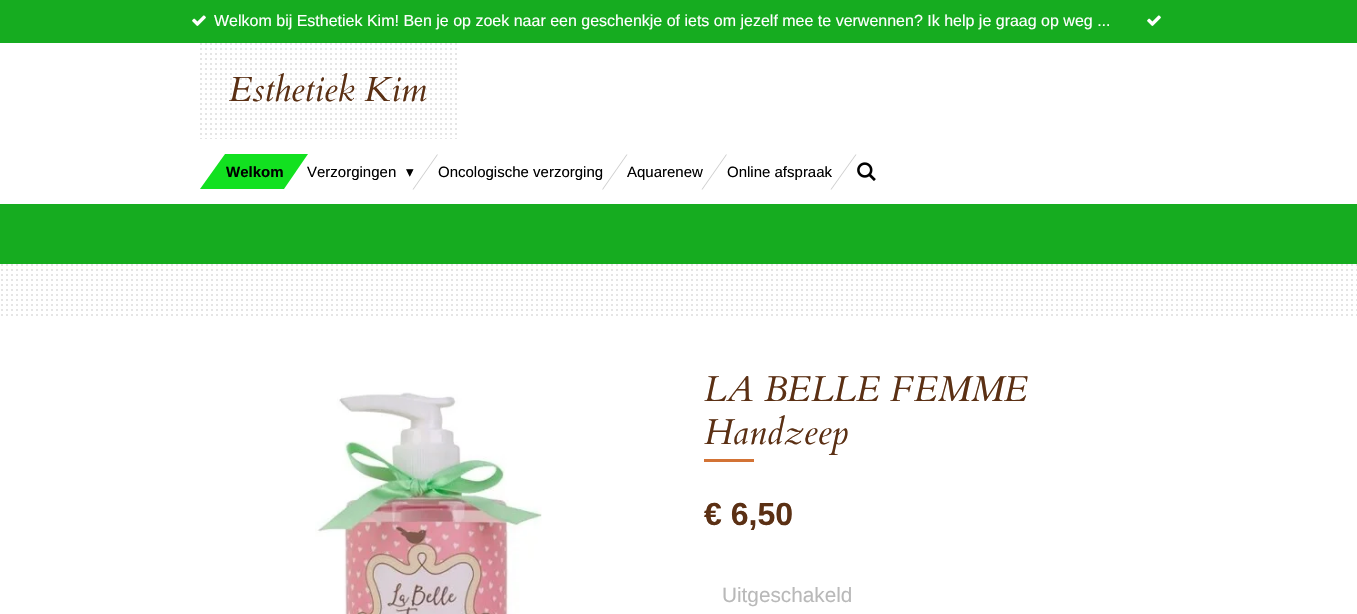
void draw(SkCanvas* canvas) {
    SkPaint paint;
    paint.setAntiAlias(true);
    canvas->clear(0xFFFFFFFF);
    paint.setColor(0xFF16AC20);
    canvas->drawRect(SkRect::MakeXYWH(0, 0, 1357, 43), paint);
    canvas->drawImageRect(SkImages::DeferredFromEncodedData(SkData::MakeFromFileName("img1.png")), SkRect::MakeXYWH(192, 15, 14, 11), SkSamplingOptions());
    SkFont font1(fontMgr->matchFamilyStyle("Liberation Sans", SkFontStyle::Normal()), 16);
    font1.setSubpixel(true);
    paint.setColor(0xFFFFFFFF);
    canvas->drawString("Welkom bij Esthetiek Kim! Ben je op zoek naar een geschenkje of iets om jezelf mee te verwennen? Ik help je graag op weg ...", 214, 26, font1, paint);
    canvas->drawImageRect(SkImages::DeferredFromEncodedData(SkData::MakeFromFileName("img1.png")), SkRect::MakeXYWH(1147, 15, 14, 11), SkSamplingOptions());
    canvas->drawImageRect(SkImages::DeferredFromEncodedData(SkData::MakeFromFileName("img2.png")), SkRect::MakeXYWH(200, 43, 257, 96), SkSamplingOptions());
    SkFont font2(fontMgr->matchFamilyStyle("Cardo", SkFontStyle::Italic()), 35);
    font2.setSubpixel(true);
    paint.setColor(0xFF5B3014);
    canvas->drawString("Esthetiek Kim", 229, 101, font2, paint);
    SkFont font3(fontMgr->matchFamilyStyle("Liberation Sans", SkFontStyle::Normal()), 15);
    font3.setSubpixel(true);
    paint.setColor(0xFF000000);
    canvas->drawString("Verzorgingen", 307, 177, font3, paint);
    paint.setColor(0xFF12E120);
    canvas->drawPath(SkPathBuilder().moveTo(225, 154).lineTo(308, 154).lineTo(284, 189).lineTo(200, 189).close().detach(), paint);
    SkFont font4(fontMgr->matchFamilyStyle("Liberation Sans", SkFontStyle::Bold()), 15);
    font4.setSubpixel(true);
    paint.setColor(0xFF000000);
    canvas->drawString("Welkom", 226, 177, font4, paint);
    paint.setColor(0xFFCCCCCC);
    canvas->drawPath(SkPathBuilder().moveTo(437, 154.5f).lineTo(438, 154.5f).lineTo(413.5f, 189.5f).lineTo(412.5f, 189.5f).close().detach(), paint);
    SkFont font5(fontMgr->matchFamilyStyle("DejaVu Sans", SkFontStyle::Normal()), 15);
    font5.setSubpixel(true);
    paint.setColor(0xFF000000);
    canvas->drawString("▾", 406, 177, font5, paint);
    paint.setColor(0xFFCCCCCC);
    canvas->drawPath(SkPathBuilder().moveTo(626.5f, 154.5f).lineTo(627.5f, 154.5f).lineTo(603, 189.5f).lineTo(602, 189.5f).close().detach(), paint);
    paint.setColor(0xFF000000);
    canvas->drawString("Oncologische verzorging", 438, 177, font3, paint);
    paint.setColor(0xFFCCCCCC);
    canvas->drawPath(SkPathBuilder().moveTo(726, 154.5f).lineTo(727, 154.5f).lineTo(702.5f, 189.5f).lineTo(701.5f, 189.5f).close().detach(), paint);
    paint.setColor(0xFF000000);
    canvas->drawString("Aquarenew", 627, 177, font3, paint);
    paint.setColor(0xFFCCCCCC);
    canvas->drawPath(SkPathBuilder().moveTo(855.5f, 154.5f).lineTo(856.5f, 154.5f).lineTo(831.5f, 189.5f).lineTo(830.5f, 189.5f).close().detach(), paint);
    paint.setColor(0xFF000000);
    canvas->drawString("Online afspraak", 727, 177, font3, paint);
    canvas->drawImageRect(SkImages::DeferredFromEncodedData(SkData::MakeFromFileName("img3.png")), SkRect::MakeXYWH(857, 162, 19, 19), SkSamplingOptions());
    canvas->drawImageRect(SkImages::DeferredFromEncodedData(SkData::MakeFromFileName("img4.png")), SkRect::MakeXYWH(1, 264, 1356, 52), SkSamplingOptions());
    paint.setColor(0xFF16AC20);
    canvas->drawRect(SkRect::MakeXYWH(0, 204, 1357, 60), paint);
    canvas->drawImageRect(SkImages::DeferredFromEncodedData(SkData::MakeFromFileName("img5.png")), SkRect::MakeXYWH(315, 392, 227, 222), SkSamplingOptions());
    SkFont font6(fontMgr->matchFamilyStyle("Cardo", SkFontStyle::Italic()), 36);
    font6.setSubpixel(true);
    paint.setColor(0xFF5B3014);
    canvas->drawString("LA BELLE FEMME", 704, 401, font6, paint);
    canvas->drawString("Handzeep", 704, 444, font6, paint);
    paint.setColor(0xFFD37335);
    canvas->drawRect(SkRect::MakeXYWH(704, 459, 50, 3), paint);
    SkFont font7(fontMgr->matchFamilyStyle("Liberation Sans", SkFontStyle::Bold()), 32);
    font7.setSubpixel(true);
    paint.setColor(0xFF5B3014);
    canvas->drawString("€ 6,50", 704, 525, font7, paint);
    SkFont font8(fontMgr->matchFamilyStyle("Liberation Sans", SkFontStyle::Normal()), 20.75f);
    font8.setSubpixel(true);
    paint.setColor(0xFFB9B9B9);
    canvas->drawString("Uitgeschakeld", 722, 602, font8, paint);
}
